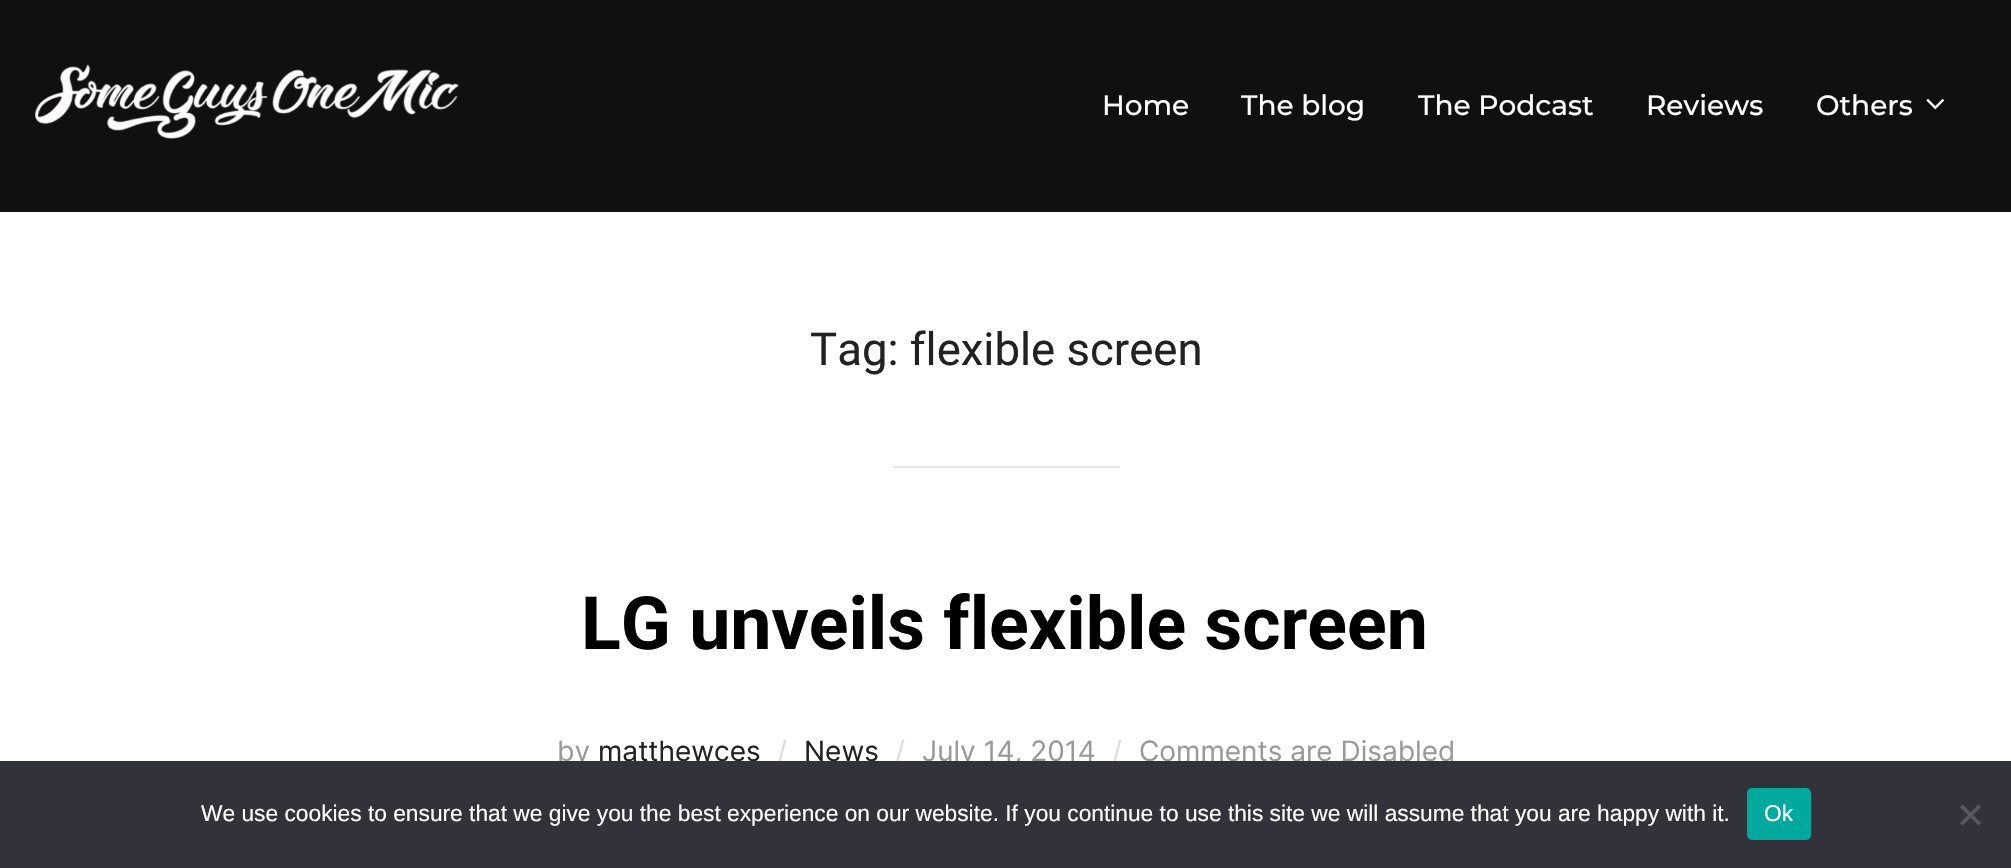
void draw(SkCanvas* canvas) {
    SkPaint paint;
    paint.setAntiAlias(true);
    canvas->clear(0xFFFFFFFF);
    paint.setColor(0xFF101010);
    canvas->drawRect(SkRect::MakeXYWH(0, 0, 2011, 212), paint);
    canvas->drawImageRect(SkImages::DeferredFromEncodedData(SkData::MakeFromFileName("img1.png")), SkRect::MakeXYWH(35, 64, 424, 75), SkSamplingOptions());
    SkFont font1(fontMgr->matchFamilyStyle("Montserrat", SkFontStyle(500, SkFontStyle::kNormal_Width, SkFontStyle::kUpright_Slant)), 28);
    font1.setSubpixel(true);
    paint.setColor(0xFFFFFFFF);
    canvas->drawString("Home", 1102, 115, font1, paint);
    canvas->drawString("The blog", 1241, 115, font1, paint);
    canvas->drawString("The Podcast", 1418, 115, font1, paint);
    canvas->drawString("Reviews", 1646, 115, font1, paint);
    canvas->drawString("Others", 1816, 115, font1, paint);
    canvas->drawImageRect(SkImages::DeferredFromEncodedData(SkData::MakeFromFileName("img2.png")), SkRect::MakeXYWH(1926, 99, 18, 11), SkSamplingOptions());
    SkFont font2(fontMgr->matchFamilyStyle("Roboto", SkFontStyle::Normal()), 45.5f);
    font2.setSubpixel(true);
    paint.setColor(0xFF222222);
    canvas->drawString("Tag: flexible screen", 810, 365, font2, paint);
    paint.setColor(0xFFE6E6E6);
    canvas->drawRect(SkRect::MakeXYWH(893, 466, 227, 2), paint);
    SkFont font3(fontMgr->matchFamilyStyle("Roboto", SkFontStyle::Bold()), 73.5f);
    font3.setSubpixel(true);
    paint.setColor(0xFF000000);
    canvas->drawString("LG unveils flexible screen", 581, 649, font3, paint);
    SkFont font4(fontMgr->matchFamilyStyle("Inter", SkFontStyle::Normal()), 28);
    font4.setSubpixel(true);
    paint.setColor(0xFF999999);
    canvas->drawString("by", 557, 761, font4, paint);
    paint.setColor(0xFF222222);
    canvas->drawString("matthewces", 598, 761, font4, paint);
    paint.setColor(0xFFDBDDDD);
    canvas->drawString("/", 777, 761, font4, paint);
    paint.setColor(0xFF222222);
    canvas->drawString("News", 804, 761, font4, paint);
    paint.setColor(0xFFDBDDDD);
    canvas->drawString("/", 895, 761, font4, paint);
    paint.setColor(0xFF999999);
    canvas->drawString("July 14, 2014", 922, 761, font4, paint);
    paint.setColor(0xFFDBDDDD);
    canvas->drawString("/", 1112, 761, font4, paint);
    paint.setColor(0xFF999999);
    canvas->drawString("Comments are Disabled", 1139, 761, font4, paint);
    paint.setColor(0xFF32323A);
    canvas->drawRect(SkRect::MakeXYWH(0, 761, 2011, 107), paint);
    SkFont font5(fontMgr->matchFamilyStyle("Liberation Sans", SkFontStyle::Normal()), 22.75f);
    font5.setSubpixel(true);
    paint.setColor(0xFFFFFFFF);
    canvas->drawString("We use cookies to ensure that we give you the best experience on our website. If you continue to use this site we will assume that you are happy with it.", 201, 821, font5, paint);
    paint.setColor(0xFF00A99D);
    canvas->drawRoundRect(SkRect::MakeXYWH(1747, 788, 64, 52), 5, 5, paint);
    paint.setColor(0xFFFFFFFF);
    canvas->drawString("Ok", 1764, 821, font5, paint);
    paint.setColor(0xFF59595D);
    canvas->drawPath(SkPathBuilder().moveTo(1978.5f, 804.5f).lineTo(1981, 807).lineTo(1962.5f, 825.5f).lineTo(1960, 823).close().detach(), paint);
    canvas->drawPath(SkPathBuilder().moveTo(1960, 807).lineTo(1962.5f, 804.5f).lineTo(1981, 823).lineTo(1978.5f, 825.5f).close().detach(), paint);
}
